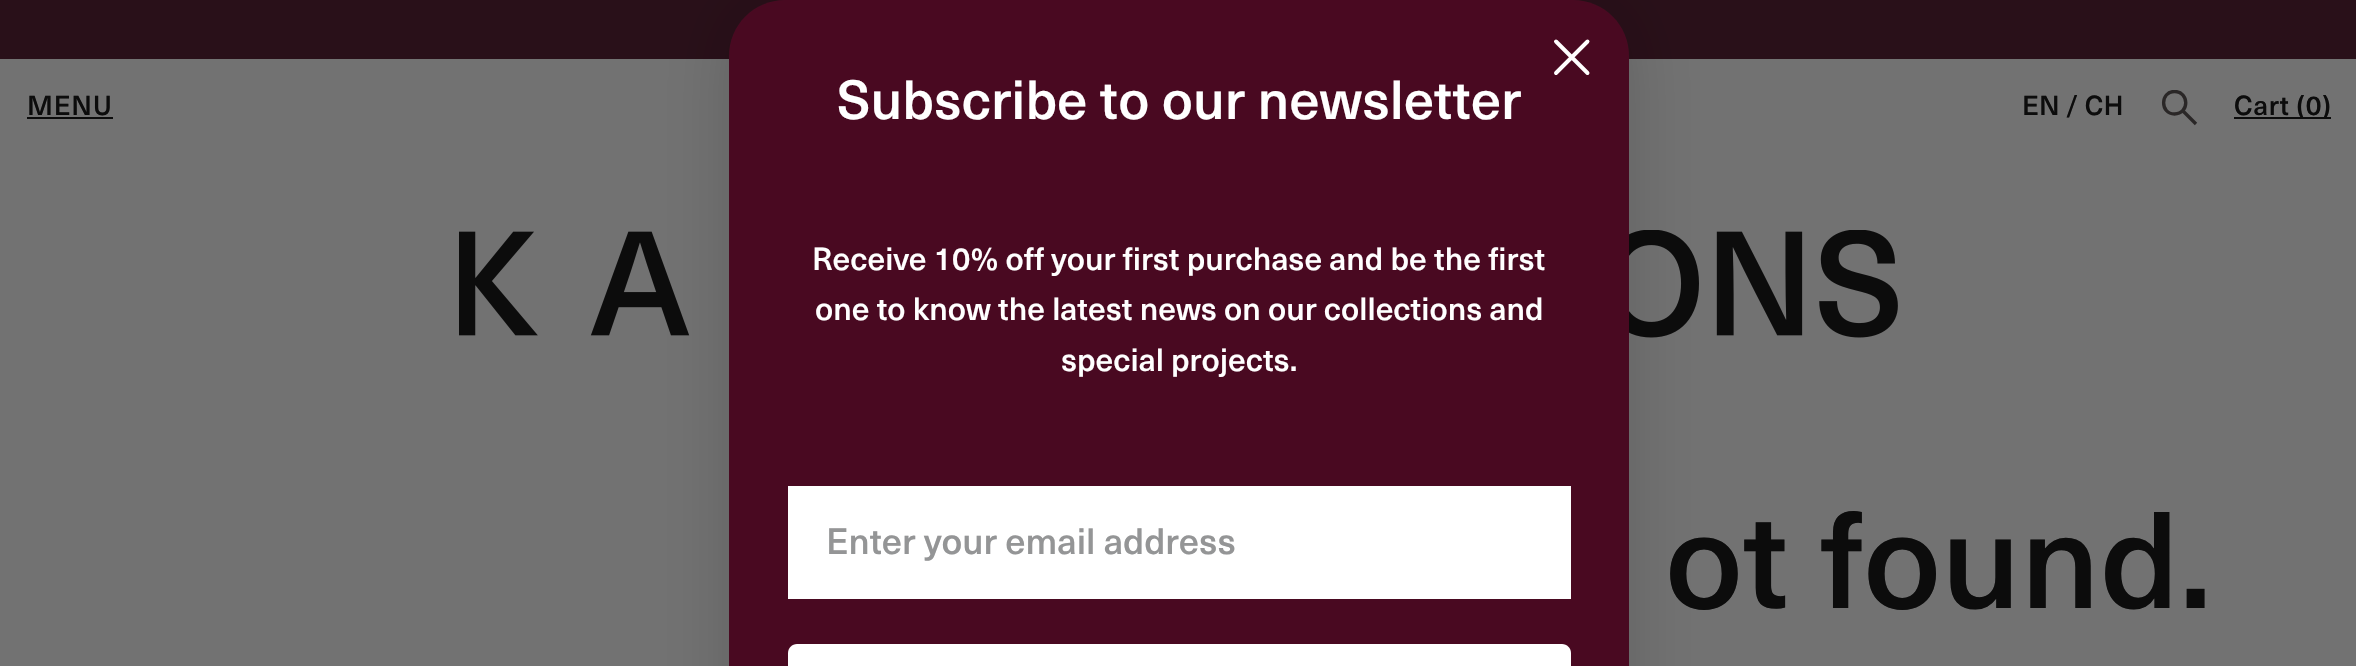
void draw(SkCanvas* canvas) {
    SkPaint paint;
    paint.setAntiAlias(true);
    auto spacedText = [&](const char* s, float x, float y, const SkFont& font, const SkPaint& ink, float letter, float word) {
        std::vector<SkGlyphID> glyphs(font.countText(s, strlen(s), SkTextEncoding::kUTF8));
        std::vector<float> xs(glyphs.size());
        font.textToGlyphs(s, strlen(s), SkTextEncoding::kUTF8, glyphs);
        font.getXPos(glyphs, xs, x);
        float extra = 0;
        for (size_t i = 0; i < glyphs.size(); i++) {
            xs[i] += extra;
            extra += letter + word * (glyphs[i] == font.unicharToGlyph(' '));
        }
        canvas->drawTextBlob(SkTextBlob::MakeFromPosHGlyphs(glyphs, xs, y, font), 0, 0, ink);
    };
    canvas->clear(0xFF727272);
    paint.setColor(0xFF291019);
    canvas->drawRect(SkRect::MakeXYWH(0, 0, 2356, 59), paint);
    canvas->drawImageRect(SkImages::DeferredFromEncodedData(SkData::MakeFromFileName("img1.png")), SkRect::MakeXYWH(459, 230, 1439, 108), SkSamplingOptions());
    paint.setColor(0x26000000);
    paint.setMaskFilter(SkMaskFilter::MakeBlur(kNormal_SkBlurStyle, 34));
    canvas->drawRoundRect(SkRect::MakeXYWH(729, 0, 900, 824), 56, 56, paint);
    paint.setMaskFilter(nullptr);
    paint.setColor(0xFF490921);
    canvas->drawPath(SkPathBuilder().moveTo(785, 0).lineTo(1573, 0).cubicTo(1604, 0, 1629, 25, 1629, 56).lineTo(1629, 666).lineTo(729, 666).lineTo(729, 56).cubicTo(729, 25, 754, 0, 785, 0).close().detach(), paint);
    paint.setStyle(SkPaint::kStroke_Style);
    paint.setStrokeWidth(3.9f);
    paint.setStrokeCap(SkPaint::kRound_Cap);
    paint.setStrokeJoin(SkPaint::kRound_Join);
    paint.setColor(0xFFFFFFFF);
    canvas->drawPath(SkPathBuilder().moveTo(1556, 41.5f).lineTo(1587.5f, 73).moveTo(1556, 73).lineTo(1587.5f, 41.5f).close().detach(), paint);
    SkFont font1(fontMgr->matchFamilyStyle("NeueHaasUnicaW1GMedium", SkFontStyle::Normal()), 54);
    font1.setSubpixel(true);
    paint.setStyle(SkPaint::kFill_Style);
    canvas->drawString("Subscribe to our newsletter", 837, 119, font1, paint);
    SkFont font2(fontMgr->matchFamilyStyle("NeueHaasUnicaW1GMedium", SkFontStyle::Normal()), 31.5f);
    font2.setSubpixel(true);
    canvas->drawString("Receive 10% off your first purchase and be the first", 812, 270, font2, paint);
    canvas->drawString("one to know the latest news on our collections and", 815, 320, font2, paint);
    canvas->drawString("special projects.", 1061, 371, font2, paint);
    canvas->drawRect(SkRect::MakeXYWH(788, 486, 783, 113), paint);
    SkFont font3(fontMgr->matchFamilyStyle("NeueHaasUnicaW1GMedium", SkFontStyle::Normal()), 36);
    font3.setSubpixel(true);
    paint.setColor(0xFF949596);
    canvas->drawString("Enter your email address", 826, 554, font3, paint);
    paint.setColor(0xFFFFFFFF);
    canvas->drawPath(SkPathBuilder().moveTo(797, 644).lineTo(1562, 644).cubicTo(1567, 644, 1571, 648, 1571, 653).lineTo(1571, 666).lineTo(788, 666).lineTo(788, 653).cubicTo(788, 648, 792, 644, 797, 644).close().detach(), paint);
    SkFont font4(fontMgr->matchFamilyStyle("NeueHaasUnicaW1GMedium", SkFontStyle::Normal()), 27);
    font4.setSubpixel(true);
    paint.setColor(0xFF0C0C0C);
    spacedText("MENU", 27, 115, font4, paint, 0.75f, 0);
    canvas->drawRect(SkRect::MakeXYWH(27, 117, 86, 2), paint);
    canvas->drawString("EN / CH", 2022, 115, font4, paint);
    canvas->save();
    canvas->clipRect(SkRect::MakeXYWH(2160, 90, 38, 36));
    paint.setStyle(SkPaint::kStroke_Style);
    paint.setStrokeWidth(3.4f);
    paint.setStrokeCap(SkPaint::kButt_Cap);
    paint.setStrokeJoin(SkPaint::kMiter_Join);
    paint.setColor(0xFF2A2727);
    canvas->drawPath(SkPathBuilder().moveTo(2174.5f, 114).cubicTo(2189.5f, 114, 2189.5f, 91.5f, 2174.5f, 91.5f).cubicTo(2160, 91.5f, 2160, 114, 2174.5f, 114).close().detach(), paint);
    canvas->restore();
    canvas->drawPath(SkPathBuilder().moveTo(2182.5f, 110.5f).lineTo(2196, 124).detach(), paint);
    paint.setStyle(SkPaint::kFill_Style);
    paint.setColor(0xFF0C0C0C);
    canvas->drawRect(SkRect::MakeXYWH(2234, 117, 97, 2), paint);
    spacedText("Cart (0)", 2234, 115, font4, paint, 0.75f, 0);
    SkFont font5(fontMgr->matchFamilyStyle("NeueHaasUnicaW1GMedium", SkFontStyle::Normal()), 135);
    font5.setSubpixel(true);
    canvas->drawString("ot found.", 1665, 608, font5, paint);
}
